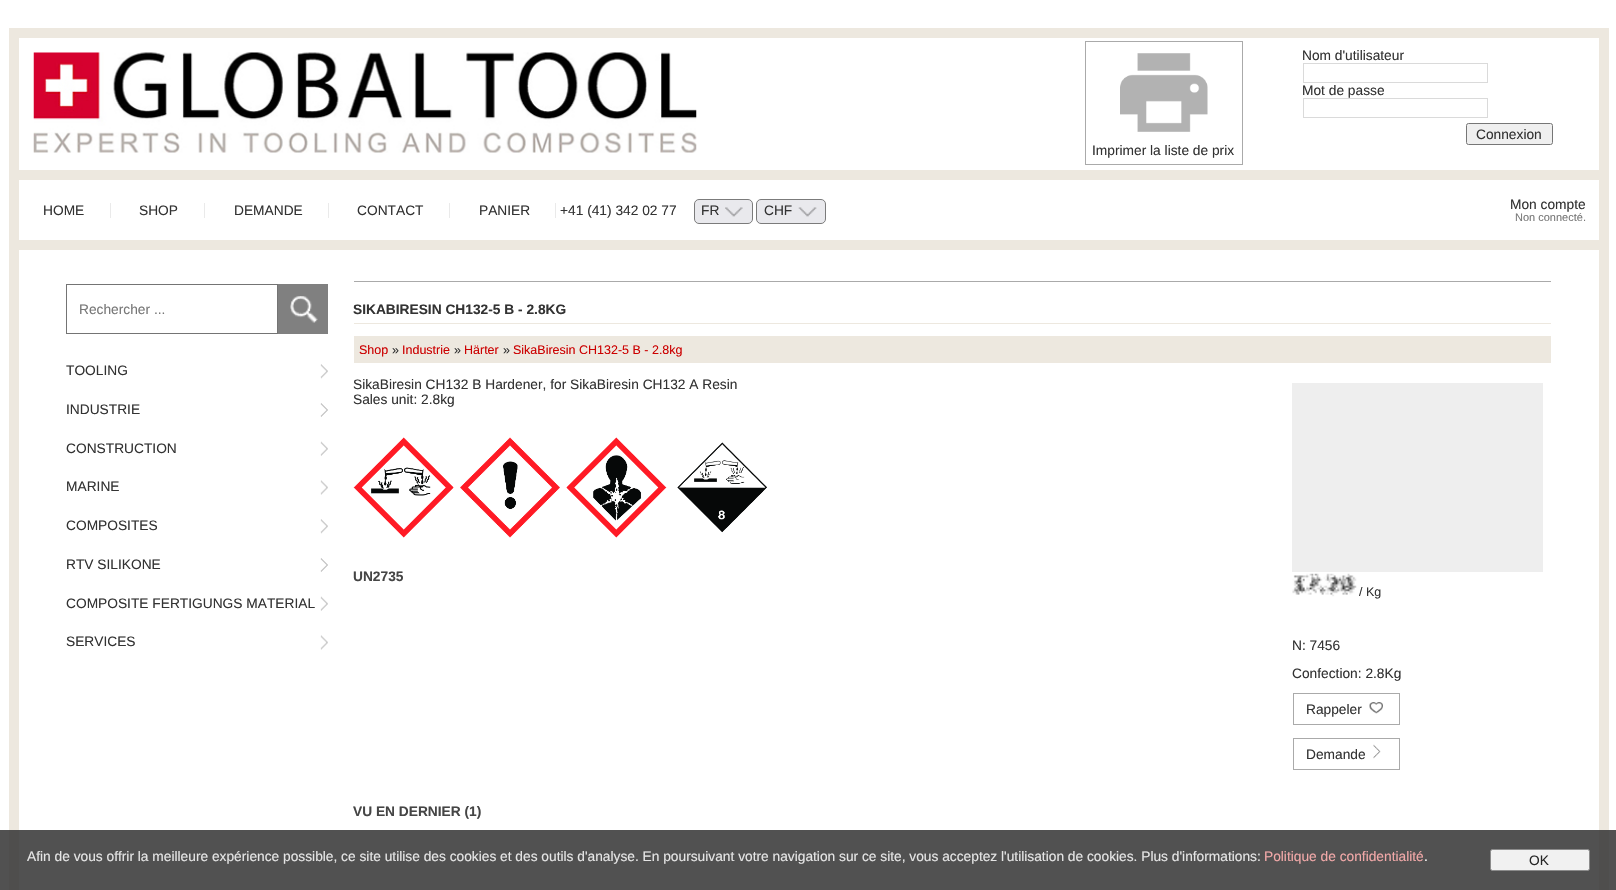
void draw(SkCanvas* canvas) {
    SkPaint paint;
    paint.setAntiAlias(true);
    canvas->clear(0xFFFFFFFF);
    paint.setStyle(SkPaint::kStroke_Style);
    paint.setStrokeWidth(10);
    paint.setColor(0xFFEDE8DF);
    canvas->drawRect(SkRect::MakeXYWH(14, 33, 1590, 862), paint);
    canvas->drawImageRect(SkImages::DeferredFromEncodedData(SkData::MakeFromFileName("img1.png")), SkRect::MakeXYWH(33, 52, 664, 101), SkSamplingOptions());
    paint.setStrokeWidth(1);
    paint.setColor(0xFFAAAAAA);
    canvas->drawRect(SkRect::MakeXYWH(1085.5f, 41.5f, 157, 123), paint);
    canvas->drawImageRect(SkImages::DeferredFromEncodedData(SkData::MakeFromFileName("img2.png")), SkRect::MakeXYWH(1120, 53, 88, 79), SkSamplingOptions());
    SkFont font1(fontMgr->matchFamilyStyle("Liberation Sans", SkFontStyle::Normal()), 13.75f);
    font1.setSubpixel(true);
    paint.setStyle(SkPaint::kFill_Style);
    paint.setColor(0xFF333333);
    canvas->drawString("Imprimer la liste de prix", 1092, 155, font1, paint);
    canvas->drawString("Nom d'utilisateur", 1302, 60, font1, paint);
    paint.setStyle(SkPaint::kStroke_Style);
    paint.setColor(0xFFDADADA);
    canvas->drawRect(SkRect::MakeXYWH(1303.5f, 63.5f, 184, 19), paint);
    paint.setStyle(SkPaint::kFill_Style);
    paint.setColor(0xFF333333);
    canvas->drawString("Mot de passe", 1302, 95, font1, paint);
    paint.setStyle(SkPaint::kStroke_Style);
    paint.setColor(0xFFDADADA);
    canvas->drawRect(SkRect::MakeXYWH(1303.5f, 98.5f, 184, 19), paint);
    paint.setStyle(SkPaint::kFill_Style);
    paint.setColor(0xFFEFEFEF);
    canvas->drawRoundRect(SkRect::MakeXYWH(1466.5f, 123.5f, 86, 21), 2, 2, paint);
    paint.setStyle(SkPaint::kStroke_Style);
    paint.setColor(0xFF767676);
    canvas->drawRoundRect(SkRect::MakeXYWH(1466.5f, 123.5f, 86, 21), 2, 2, paint);
    paint.setStyle(SkPaint::kFill_Style);
    paint.setColor(0xFF333333);
    canvas->drawString("Connexion", 1476, 139, font1, paint);
    paint.setColor(0xFFEDE8DF);
    canvas->drawRect(SkRect::MakeXYWH(19, 170, 1580, 10), paint);
    canvas->drawRect(SkRect::MakeXYWH(19, 240, 1580, 10), paint);
    paint.setColor(0xFFEAEAEA);
    canvas->drawRect(SkRect::MakeXYWH(110, 203, 1, 15), paint);
    paint.setColor(0xFF333333);
    canvas->drawString("HOME", 43, 215, font1, paint);
    paint.setColor(0xFFEAEAEA);
    canvas->drawRect(SkRect::MakeXYWH(204, 203, 1, 15), paint);
    paint.setColor(0xFF333333);
    canvas->drawString("SHOP", 139, 215, font1, paint);
    paint.setColor(0xFFEAEAEA);
    canvas->drawRect(SkRect::MakeXYWH(328, 203, 1, 15), paint);
    paint.setColor(0xFF333333);
    canvas->drawString("DEMANDE", 234, 215, font1, paint);
    paint.setColor(0xFFEAEAEA);
    canvas->drawRect(SkRect::MakeXYWH(449, 203, 1, 15), paint);
    paint.setColor(0xFF333333);
    canvas->drawString("CONTACT", 357, 215, font1, paint);
    paint.setColor(0xFFEAEAEA);
    canvas->drawRect(SkRect::MakeXYWH(555, 203, 1, 15), paint);
    paint.setColor(0xFF333333);
    canvas->drawString("PANIER", 479, 215, font1, paint);
    canvas->drawString("+41 (41) 342 02 77", 560, 215, font1, paint);
    paint.setColor(0xFFE9E9ED);
    canvas->drawRoundRect(SkRect::MakeXYWH(694.5f, 199.5f, 58, 24), 4.5f, 4.5f, paint);
    paint.setStyle(SkPaint::kStroke_Style);
    paint.setColor(0xFF7B7B7B);
    canvas->drawRoundRect(SkRect::MakeXYWH(694.5f, 199.5f, 58, 24), 4.5f, 4.5f, paint);
    paint.setStyle(SkPaint::kFill_Style);
    paint.setColor(0xFF333333);
    canvas->drawString("FR", 701, 215, font1, paint);
    canvas->drawImageRect(SkImages::DeferredFromEncodedData(SkData::MakeFromFileName("img3.png")), SkRect::MakeXYWH(725, 207, 18, 10), SkSamplingOptions());
    paint.setColor(0xFFE9E9ED);
    canvas->drawRoundRect(SkRect::MakeXYWH(756.5f, 199.5f, 69, 24), 4.5f, 4.5f, paint);
    paint.setStyle(SkPaint::kStroke_Style);
    paint.setColor(0xFF7B7B7B);
    canvas->drawRoundRect(SkRect::MakeXYWH(756.5f, 199.5f, 69, 24), 4.5f, 4.5f, paint);
    paint.setStyle(SkPaint::kFill_Style);
    paint.setColor(0xFF333333);
    canvas->drawString("CHF", 764, 215, font1, paint);
    canvas->drawImageRect(SkImages::DeferredFromEncodedData(SkData::MakeFromFileName("img4.png")), SkRect::MakeXYWH(798, 207, 19, 10), SkSamplingOptions());
    canvas->drawString("Mon compte", 1510, 209, font1, paint);
    SkFont font2(fontMgr->matchFamilyStyle("Liberation Sans", SkFontStyle::Normal()), 11);
    font2.setSubpixel(true);
    paint.setColor(0xFF777777);
    canvas->drawString("Non connecté.", 1515, 221, font2, paint);
    paint.setStyle(SkPaint::kStroke_Style);
    paint.setColor(0xFF747474);
    canvas->drawRect(SkRect::MakeXYWH(66.5f, 284.5f, 211, 49), paint);
    paint.setStyle(SkPaint::kFill_Style);
    paint.setColor(0xFF777777);
    canvas->drawString("Rechercher ...", 79, 314, font1, paint);
    paint.setColor(0xFF808080);
    canvas->drawRect(SkRect::MakeXYWH(278, 284, 50, 50), paint);
    canvas->drawImageRect(SkImages::DeferredFromEncodedData(SkData::MakeFromFileName("img5.png")), SkRect::MakeXYWH(290, 296, 28, 27), SkSamplingOptions());
    paint.setColor(0xFF333333);
    canvas->drawString("TOOLING", 66, 375, font1, paint);
    canvas->drawImageRect(SkImages::DeferredFromEncodedData(SkData::MakeFromFileName("img6.png")), SkRect::MakeXYWH(320, 364, 8, 15), SkSamplingOptions());
    canvas->drawString("INDUSTRIE", 66, 414, font1, paint);
    canvas->drawImageRect(SkImages::DeferredFromEncodedData(SkData::MakeFromFileName("img7.png")), SkRect::MakeXYWH(320, 403, 8, 14), SkSamplingOptions());
    canvas->drawString("CONSTRUCTION", 66, 453, font1, paint);
    canvas->drawImageRect(SkImages::DeferredFromEncodedData(SkData::MakeFromFileName("img8.png")), SkRect::MakeXYWH(320, 441, 8, 15), SkSamplingOptions());
    canvas->drawString("MARINE", 66, 491, font1, paint);
    canvas->drawImageRect(SkImages::DeferredFromEncodedData(SkData::MakeFromFileName("img9.png")), SkRect::MakeXYWH(320, 480, 8, 15), SkSamplingOptions());
    canvas->drawString("COMPOSITES", 66, 530, font1, paint);
    canvas->drawImageRect(SkImages::DeferredFromEncodedData(SkData::MakeFromFileName("img6.png")), SkRect::MakeXYWH(320, 519, 8, 15), SkSamplingOptions());
    canvas->drawString("RTV SILIKONE", 66, 569, font1, paint);
    canvas->drawImageRect(SkImages::DeferredFromEncodedData(SkData::MakeFromFileName("img7.png")), SkRect::MakeXYWH(320, 558, 8, 14), SkSamplingOptions());
    canvas->drawString("COMPOSITE FERTIGUNGS MATERIAL", 66, 608, font1, paint);
    canvas->drawImageRect(SkImages::DeferredFromEncodedData(SkData::MakeFromFileName("img8.png")), SkRect::MakeXYWH(320, 596, 8, 15), SkSamplingOptions());
    canvas->drawString("SERVICES", 66, 646, font1, paint);
    canvas->drawImageRect(SkImages::DeferredFromEncodedData(SkData::MakeFromFileName("img9.png")), SkRect::MakeXYWH(320, 635, 8, 15), SkSamplingOptions());
    paint.setColor(0xFFAAAAAA);
    canvas->drawRect(SkRect::MakeXYWH(354, 281, 1197, 1), paint);
    SkFont font3(fontMgr->matchFamilyStyle("Liberation Sans", SkFontStyle::Bold()), 13.75f);
    font3.setSubpixel(true);
    paint.setColor(0xFF333333);
    canvas->drawString("SIKABIRESIN CH132-5 B - 2.8KG", 353, 314, font3, paint);
    paint.setColor(0xFFEDE8DF);
    canvas->drawRect(SkRect::MakeXYWH(354, 323, 1197, 1), paint);
    canvas->drawRect(SkRect::MakeXYWH(354, 336, 1197, 27), paint);
    SkFont font4(fontMgr->matchFamilyStyle("Liberation Sans", SkFontStyle::Normal()), 12.5f);
    font4.setSubpixel(true);
    paint.setColor(0xFFCC0000);
    canvas->drawString("Shop", 359, 354, font4, paint);
    paint.setColor(0xFF333333);
    canvas->drawString("»", 392, 354, font4, paint);
    paint.setColor(0xFFCC0000);
    canvas->drawString("Industrie", 402, 354, font4, paint);
    paint.setColor(0xFF333333);
    canvas->drawString("»", 454, 354, font4, paint);
    paint.setColor(0xFFCC0000);
    canvas->drawString("Härter", 464, 354, font4, paint);
    paint.setColor(0xFF333333);
    canvas->drawString("»", 503, 354, font4, paint);
    paint.setColor(0xFFCC0000);
    canvas->drawString("SikaBiresin CH132-5 B - 2.8kg", 513, 354, font4, paint);
    paint.setColor(0xFF333333);
    canvas->drawString("SikaBiresin CH132 B Hardener, for SikaBiresin CH132 A Resin", 353, 389, font1, paint);
    canvas->drawString("Sales unit: 2.8kg", 353, 404, font1, paint);
    canvas->drawImageRect(SkImages::DeferredFromEncodedData(SkData::MakeFromFileName("img10.png")), SkRect::MakeXYWH(353, 437, 101, 101), SkSamplingOptions());
    canvas->drawImageRect(SkImages::DeferredFromEncodedData(SkData::MakeFromFileName("img11.png")), SkRect::MakeXYWH(460, 437, 100, 101), SkSamplingOptions());
    canvas->drawImageRect(SkImages::DeferredFromEncodedData(SkData::MakeFromFileName("img12.png")), SkRect::MakeXYWH(566, 437, 101, 101), SkSamplingOptions());
    canvas->drawImageRect(SkImages::DeferredFromEncodedData(SkData::MakeFromFileName("img13.png")), SkRect::MakeXYWH(677, 442, 90, 91), SkSamplingOptions());
    paint.setColor(0xFF454545);
    canvas->drawString("UN2735", 353, 581, font3, paint);
    paint.setColor(0xFFEEEEEE);
    canvas->drawRect(SkRect::MakeXYWH(1292, 383, 251, 189), paint);
    canvas->drawImageRect(SkImages::DeferredFromEncodedData(SkData::MakeFromFileName("img14.png")), SkRect::MakeXYWH(1292, 573, 65, 24), SkSamplingOptions());
    paint.setColor(0xFF333333);
    canvas->drawString("/ Kg", 1359, 596, font4, paint);
    canvas->drawString("N: 7456", 1292, 650, font1, paint);
    canvas->drawString("Confection: 2.8Kg", 1292, 678, font1, paint);
    paint.setStyle(SkPaint::kStroke_Style);
    paint.setColor(0xFFAAAAAA);
    canvas->drawRect(SkRect::MakeXYWH(1293.5f, 693.5f, 106, 31), paint);
    paint.setStyle(SkPaint::kFill_Style);
    paint.setColor(0xFF333333);
    canvas->drawString("Rappeler", 1306, 714, font1, paint);
    canvas->drawImageRect(SkImages::DeferredFromEncodedData(SkData::MakeFromFileName("img15.png")), SkRect::MakeXYWH(1369, 702, 14, 12), SkSamplingOptions());
    paint.setStyle(SkPaint::kStroke_Style);
    paint.setColor(0xFFAAAAAA);
    canvas->drawRect(SkRect::MakeXYWH(1293.5f, 738.5f, 106, 31), paint);
    paint.setStyle(SkPaint::kFill_Style);
    paint.setColor(0xFF333333);
    canvas->drawString("Demande", 1306, 759, font1, paint);
    canvas->drawImageRect(SkImages::DeferredFromEncodedData(SkData::MakeFromFileName("img16.png")), SkRect::MakeXYWH(1373, 744, 8, 15), SkSamplingOptions());
    paint.setColor(0xFF454545);
    canvas->drawString("VU EN DERNIER (1)", 353, 816, font3, paint);
    paint.setColor(0xD9333333);
    canvas->drawRect(SkRect::MakeXYWH(0, 830, 1616, 60), paint);
    paint.setColor(0xFFE5E5E5);
    canvas->drawString("Afin de vous offrir la meilleure expérience possible, ce site utilise des cookies et des outils d'analyse. En poursuivant votre navigation sur ce site, vous acceptez l'utilisation de cookies. Plus d'informations:", 27, 861, font1, paint);
    paint.setColor(0xFFF1A8A8);
    canvas->drawString("Politique de confidentialité", 1264, 861, font1, paint);
    paint.setColor(0xFFFFFFFF);
    canvas->drawString(".", 1424, 861, font1, paint);
    paint.setColor(0xFFF1F1F1);
    canvas->drawRoundRect(SkRect::MakeXYWH(1490.5f, 849.5f, 99, 21), 2, 2, paint);
    paint.setStyle(SkPaint::kStroke_Style);
    paint.setColor(0xFF8B8B8B);
    canvas->drawRoundRect(SkRect::MakeXYWH(1490.5f, 849.5f, 99, 21), 2, 2, paint);
    paint.setStyle(SkPaint::kFill_Style);
    paint.setColor(0xFF262626);
    canvas->drawString("OK", 1529, 865, font1, paint);
}
